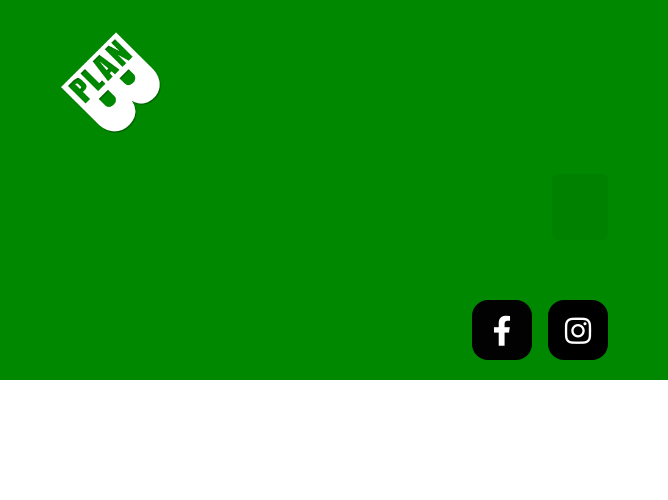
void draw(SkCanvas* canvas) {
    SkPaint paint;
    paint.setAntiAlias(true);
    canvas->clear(0xFFFFFFFF);
    paint.setColor(0xFF008800);
    canvas->drawRect(SkRect::MakeXYWH(0, 0, 668, 380), paint);
    canvas->drawImageRect(SkImages::DeferredFromEncodedData(SkData::MakeFromFileName("img1.png")), SkRect::MakeXYWH(61, 32, 100, 101), SkSamplingOptions());
    paint.setColor(0xFF008100);
    canvas->drawRoundRect(SkRect::MakeXYWH(552, 174, 56, 66), 6, 6, paint);
    paint.setColor(0xFF020202);
    canvas->drawRoundRect(SkRect::MakeXYWH(472, 300, 60, 60), 16, 16, paint);
    canvas->drawImageRect(SkImages::DeferredFromEncodedData(SkData::MakeFromFileName("img2.png")), SkRect::MakeXYWH(493, 315, 18, 31), SkSamplingOptions());
    paint.setColor(0xFF000000);
    canvas->drawRoundRect(SkRect::MakeXYWH(548, 300, 60, 60), 16, 16, paint);
    canvas->drawImageRect(SkImages::DeferredFromEncodedData(SkData::MakeFromFileName("img3.png")), SkRect::MakeXYWH(564, 317, 28, 27), SkSamplingOptions());
}
